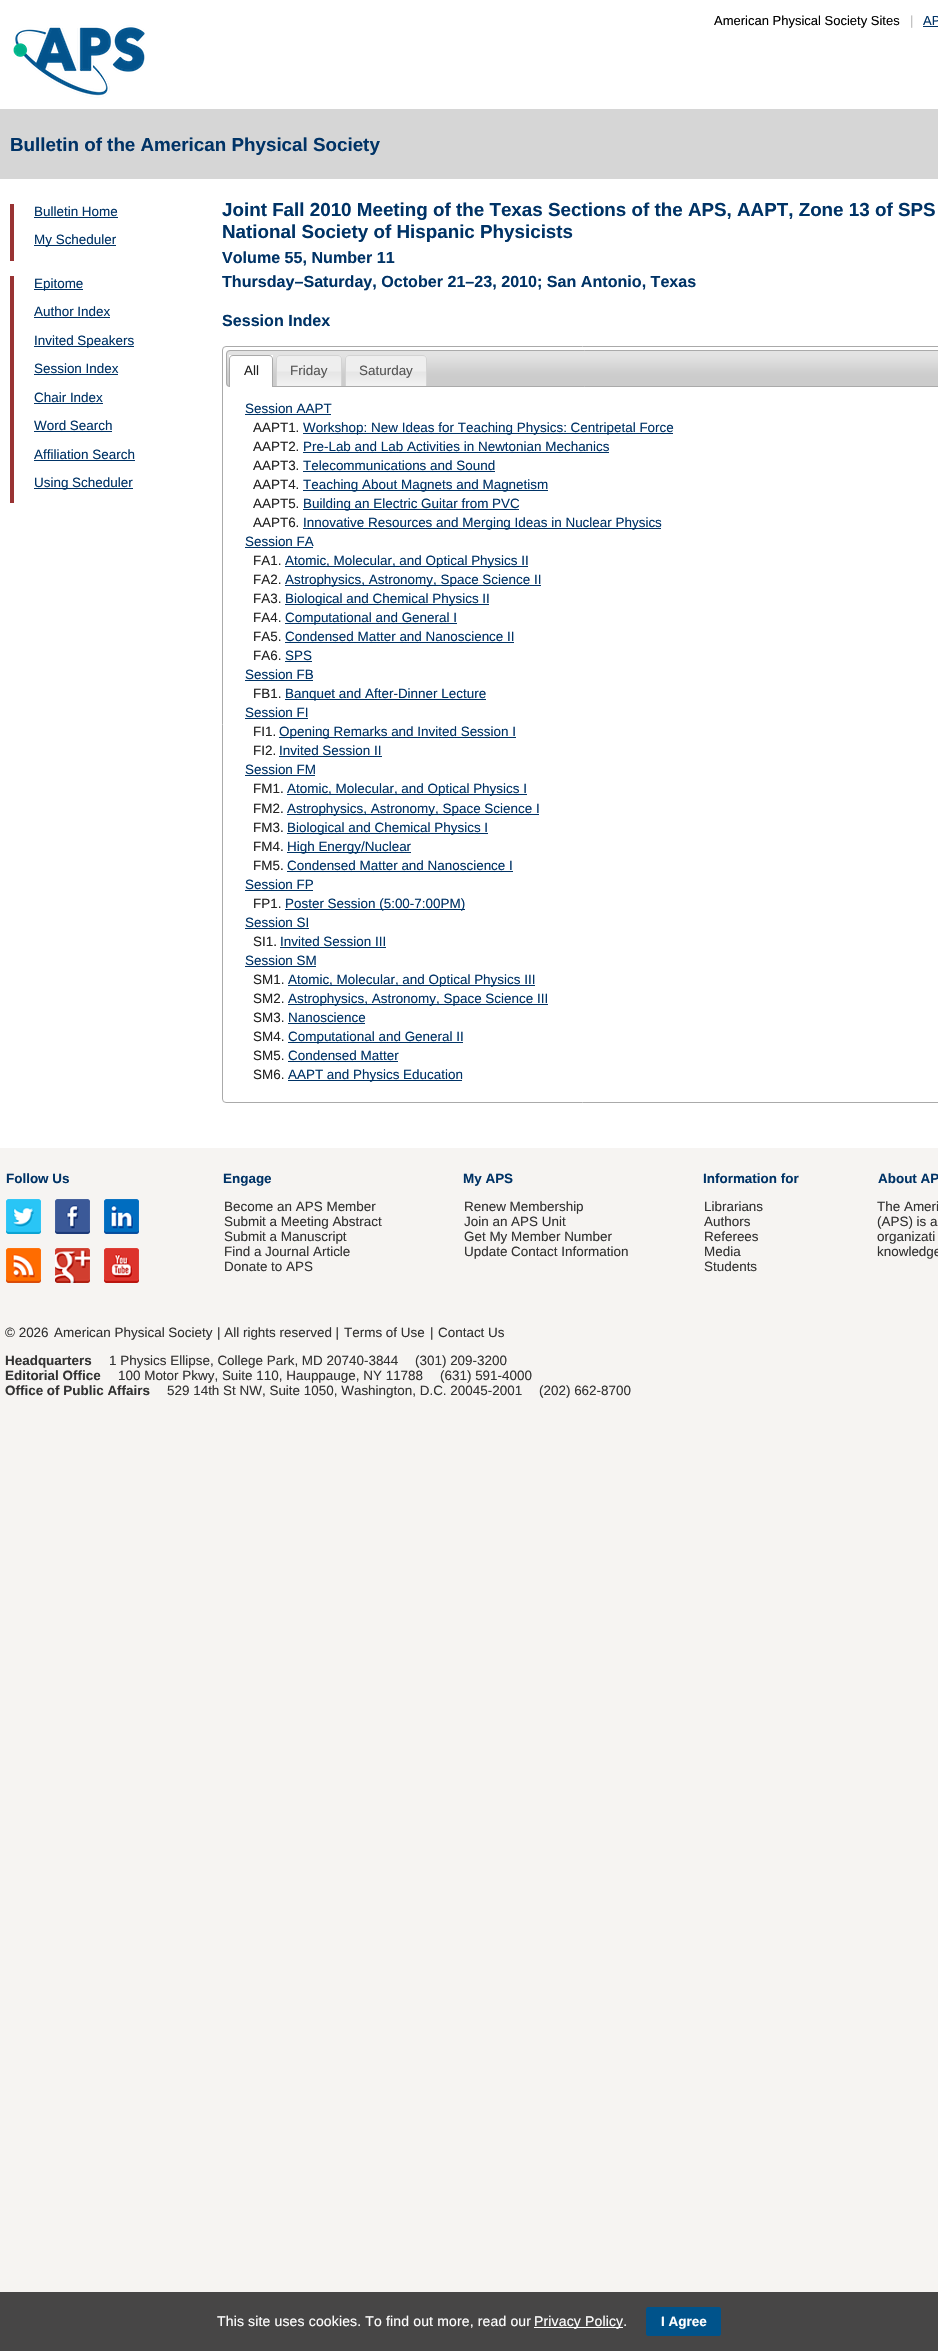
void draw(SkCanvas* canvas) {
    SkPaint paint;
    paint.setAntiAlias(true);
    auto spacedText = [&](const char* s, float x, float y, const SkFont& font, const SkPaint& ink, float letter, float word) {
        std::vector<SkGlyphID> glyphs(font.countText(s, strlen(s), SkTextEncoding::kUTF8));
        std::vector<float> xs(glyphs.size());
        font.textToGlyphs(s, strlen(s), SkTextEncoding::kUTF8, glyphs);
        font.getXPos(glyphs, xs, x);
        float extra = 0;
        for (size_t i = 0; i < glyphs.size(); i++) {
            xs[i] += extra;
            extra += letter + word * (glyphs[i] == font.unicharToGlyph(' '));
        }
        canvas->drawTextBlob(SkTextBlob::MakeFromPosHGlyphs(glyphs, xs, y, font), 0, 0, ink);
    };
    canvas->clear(0xFFF6F4F2);
    canvas->drawImageRect(SkImages::DeferredFromEncodedData(SkData::MakeFromFileName("img1.png")), SkRect::MakeXYWH(0, 0, 938, 9), SkSamplingOptions());
    paint.setColor(0xFFFFFFFF);
    canvas->drawRect(SkRect::MakeXYWH(0, 9, 938, 1139), paint);
    SkFont font1(fontMgr->matchFamilyStyle("Liberation Sans", SkFontStyle::Normal()), 13);
    font1.setSubpixel(true);
    paint.setColor(0xFF000000);
    canvas->drawString("American Physical Society Sites", 714, 25, font1, paint);
    paint.setColor(0xFFBBBBBB);
    canvas->drawString("|", 910, 25, font1, paint);
    paint.setColor(0xFF003366);
    canvas->drawString("AP", 923, 25, font1, paint);
    canvas->drawRect(SkRect::MakeXYWH(923, 26, 15, 1), paint);
    canvas->drawImageRect(SkImages::DeferredFromEncodedData(SkData::MakeFromFileName("img2.png")), SkRect::MakeXYWH(13, 25, 132, 73), SkSamplingOptions());
    paint.setColor(0xFFD6D6D6);
    canvas->drawRect(SkRect::MakeXYWH(0, 109, 938, 70), paint);
    SkFont font2(fontMgr->matchFamilyStyle("Liberation Sans", SkFontStyle::Bold()), 18.8f);
    font2.setSubpixel(true);
    paint.setColor(0xFF003366);
    canvas->drawString("Bulletin of the American Physical Society", 10, 151, font2, paint);
    paint.setColor(0xFF993333);
    canvas->drawRect(SkRect::MakeXYWH(10, 204, 4, 57), paint);
    SkFont font3(fontMgr->matchFamilyStyle("Liberation Sans", SkFontStyle::Normal()), 13.45f);
    font3.setSubpixel(true);
    paint.setColor(0xFF003366);
    canvas->drawString("Bulletin Home", 34, 216, font3, paint);
    canvas->drawRect(SkRect::MakeXYWH(34, 217, 84, 1), paint);
    canvas->drawRect(SkRect::MakeXYWH(34, 245, 82, 1), paint);
    canvas->drawString("My Scheduler", 34, 244, font3, paint);
    paint.setColor(0xFF993333);
    canvas->drawRect(SkRect::MakeXYWH(10, 276, 4, 227), paint);
    paint.setColor(0xFF003366);
    canvas->drawRect(SkRect::MakeXYWH(34, 289, 49, 1), paint);
    canvas->drawString("Epitome", 34, 288, font3, paint);
    canvas->drawString("Author Index", 34, 316, font3, paint);
    canvas->drawRect(SkRect::MakeXYWH(34, 317, 76, 1), paint);
    canvas->drawRect(SkRect::MakeXYWH(34, 346, 100, 1), paint);
    canvas->drawString("Invited Speakers", 34, 345, font3, paint);
    canvas->drawString("Session Index", 34, 373, font3, paint);
    canvas->drawRect(SkRect::MakeXYWH(34, 374, 84, 1), paint);
    canvas->drawString("Chair Index", 34, 402, font3, paint);
    canvas->drawRect(SkRect::MakeXYWH(34, 403, 69, 1), paint);
    canvas->drawString("Word Search", 34, 430, font3, paint);
    canvas->drawRect(SkRect::MakeXYWH(34, 431, 78, 1), paint);
    canvas->drawString("Affiliation Search", 34, 459, font3, paint);
    canvas->drawRect(SkRect::MakeXYWH(34, 460, 101, 1), paint);
    canvas->drawRect(SkRect::MakeXYWH(34, 488, 99, 1), paint);
    canvas->drawString("Using Scheduler", 34, 487, font3, paint);
    canvas->drawString("Joint Fall 2010 Meeting of the Texas Sections of the APS, AAPT, Zone 13 of SPS", 222, 216, font2, paint);
    canvas->drawString("National Society of Hispanic Physicists", 222, 238, font2, paint);
    SkFont font4(fontMgr->matchFamilyStyle("Liberation Sans", SkFontStyle::Bold()), 16.1f);
    font4.setSubpixel(true);
    canvas->drawString("Volume 55, Number 11", 222, 263, font4, paint);
    canvas->drawString("Thursday–Saturday, October 21–23, 2010; San Antonio, Texas", 222, 287, font4, paint);
    canvas->drawString("Session Index", 222, 326, font4, paint);
    paint.setStyle(SkPaint::kStroke_Style);
    paint.setStrokeWidth(1);
    paint.setColor(0xFFAAAAAA);
    canvas->drawRoundRect(SkRect::MakeXYWH(222.5f, 346.5f, 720, 756), 3.5f, 3.5f, paint);
    canvas->drawImageRect(SkImages::DeferredFromEncodedData(SkData::MakeFromFileName("img3.png")), SkRect::MakeXYWH(226, 350, 712, 37), SkSamplingOptions());
    canvas->drawRoundRect(SkRect::MakeXYWH(226.5f, 350.5f, 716, 36), 3.5f, 3.5f, paint);
    paint.setStyle(SkPaint::kFill_Style);
    paint.setColor(0xFFFFFFFF);
    canvas->drawRect(SkRect::MakeXYWH(229, 355, 44, 32), paint);
    paint.setColor(0xFFAAAAAA);
    canvas->drawPath(SkPathBuilder(SkPathFillType::kEvenOdd).moveTo(233, 355).lineTo(269, 355).cubicTo(271, 355, 273, 357, 273, 359).lineTo(273, 387).lineTo(229, 387).lineTo(229, 359).cubicTo(229, 357, 231, 355, 233, 355).close().moveTo(233, 356).lineTo(269, 356).cubicTo(271, 356, 272, 357, 272, 359).lineTo(272, 387).lineTo(230, 387).lineTo(230, 359).cubicTo(230, 357, 231, 356, 233, 356).close().detach(), paint);
    paint.setColor(0xFF222222);
    canvas->drawString("All", 244, 375, font3, paint);
    canvas->drawImageRect(SkImages::DeferredFromEncodedData(SkData::MakeFromFileName("img4.png")), SkRect::MakeXYWH(276, 355, 66, 31), SkSamplingOptions());
    paint.setColor(0xFFD3D3D3);
    canvas->drawPath(SkPathBuilder(SkPathFillType::kEvenOdd).moveTo(280, 355).lineTo(338, 355).cubicTo(340, 355, 342, 357, 342, 359).lineTo(342, 386).lineTo(276, 386).lineTo(276, 359).cubicTo(276, 357, 278, 355, 280, 355).close().moveTo(280, 356).lineTo(338, 356).cubicTo(340, 356, 341, 357, 341, 359).lineTo(341, 386).lineTo(277, 386).lineTo(277, 359).cubicTo(277, 357, 278, 356, 280, 356).close().detach(), paint);
    paint.setColor(0xFF555555);
    canvas->drawString("Friday", 290, 375, font3, paint);
    canvas->drawImageRect(SkImages::DeferredFromEncodedData(SkData::MakeFromFileName("img5.png")), SkRect::MakeXYWH(345, 355, 82, 31), SkSamplingOptions());
    paint.setColor(0xFFD3D3D3);
    canvas->drawPath(SkPathBuilder(SkPathFillType::kEvenOdd).moveTo(349, 355).lineTo(423, 355).cubicTo(425, 355, 427, 357, 427, 359).lineTo(427, 386).lineTo(345, 386).lineTo(345, 359).cubicTo(345, 357, 347, 355, 349, 355).close().moveTo(349, 356).lineTo(423, 356).cubicTo(425, 356, 426, 357, 426, 359).lineTo(426, 386).lineTo(346, 386).lineTo(346, 359).cubicTo(346, 357, 347, 356, 349, 356).close().detach(), paint);
    paint.setColor(0xFF555555);
    canvas->drawString("Saturday", 359, 375, font3, paint);
    paint.setColor(0xFF003366);
    canvas->drawString("Session AAPT", 245, 413, font3, paint);
    canvas->drawRect(SkRect::MakeXYWH(245, 414, 86, 1), paint);
    paint.setColor(0xFF222222);
    canvas->drawString("AAPT1.", 253, 432, font3, paint);
    paint.setColor(0xFF003366);
    canvas->drawRect(SkRect::MakeXYWH(303, 433, 370, 1), paint);
    canvas->drawString("Workshop: New Ideas for Teaching Physics: Centripetal Force", 303, 432, font3, paint);
    paint.setColor(0xFF222222);
    canvas->drawString("AAPT2.", 253, 451, font3, paint);
    paint.setColor(0xFF003366);
    canvas->drawString("Pre-Lab and Lab Activities in Newtonian Mechanics", 303, 451, font3, paint);
    canvas->drawRect(SkRect::MakeXYWH(303, 452, 306, 1), paint);
    paint.setColor(0xFF222222);
    canvas->drawString("AAPT3.", 253, 470, font3, paint);
    paint.setColor(0xFF003366);
    canvas->drawString("Telecommunications and Sound", 303, 470, font3, paint);
    canvas->drawRect(SkRect::MakeXYWH(303, 471, 192, 1), paint);
    paint.setColor(0xFF222222);
    canvas->drawString("AAPT4.", 253, 489, font3, paint);
    paint.setColor(0xFF003366);
    canvas->drawRect(SkRect::MakeXYWH(303, 490, 245, 1), paint);
    canvas->drawString("Teaching About Magnets and Magnetism", 303, 489, font3, paint);
    paint.setColor(0xFF222222);
    canvas->drawString("AAPT5.", 253, 508, font3, paint);
    paint.setColor(0xFF003366);
    canvas->drawRect(SkRect::MakeXYWH(303, 509, 216, 1), paint);
    canvas->drawString("Building an Electric Guitar from PVC", 303, 508, font3, paint);
    paint.setColor(0xFF222222);
    canvas->drawString("AAPT6.", 253, 527, font3, paint);
    paint.setColor(0xFF003366);
    canvas->drawRect(SkRect::MakeXYWH(303, 528, 358, 1), paint);
    canvas->drawString("Innovative Resources and Merging Ideas in Nuclear Physics", 303, 527, font3, paint);
    canvas->drawString("Session FA", 245, 546, font3, paint);
    canvas->drawRect(SkRect::MakeXYWH(245, 547, 68, 1), paint);
    paint.setColor(0xFF222222);
    canvas->drawString("FA1.", 253, 565, font3, paint);
    paint.setColor(0xFF003366);
    canvas->drawRect(SkRect::MakeXYWH(285, 566, 243, 1), paint);
    canvas->drawString("Atomic, Molecular, and Optical Physics II", 285, 565, font3, paint);
    paint.setColor(0xFF222222);
    canvas->drawString("FA2.", 253, 584, font3, paint);
    paint.setColor(0xFF003366);
    canvas->drawRect(SkRect::MakeXYWH(285, 585, 256, 1), paint);
    canvas->drawString("Astrophysics, Astronomy, Space Science II", 285, 584, font3, paint);
    paint.setColor(0xFF222222);
    canvas->drawString("FA3.", 253, 603, font3, paint);
    paint.setColor(0xFF003366);
    canvas->drawRect(SkRect::MakeXYWH(285, 604, 204, 1), paint);
    canvas->drawString("Biological and Chemical Physics II", 285, 603, font3, paint);
    paint.setColor(0xFF222222);
    canvas->drawString("FA4.", 253, 622, font3, paint);
    paint.setColor(0xFF003366);
    canvas->drawRect(SkRect::MakeXYWH(285, 623, 172, 1), paint);
    canvas->drawString("Computational and General I", 285, 622, font3, paint);
    paint.setColor(0xFF222222);
    canvas->drawString("FA5.", 253, 641, font3, paint);
    paint.setColor(0xFF003366);
    canvas->drawString("Condensed Matter and Nanoscience II", 285, 641, font3, paint);
    canvas->drawRect(SkRect::MakeXYWH(285, 642, 229, 1), paint);
    paint.setColor(0xFF222222);
    canvas->drawString("FA6.", 253, 660, font3, paint);
    paint.setColor(0xFF003366);
    canvas->drawString("SPS", 285, 660, font3, paint);
    canvas->drawRect(SkRect::MakeXYWH(285, 661, 27, 1), paint);
    canvas->drawString("Session FB", 245, 679, font3, paint);
    canvas->drawRect(SkRect::MakeXYWH(245, 680, 68, 1), paint);
    paint.setColor(0xFF222222);
    canvas->drawString("FB1.", 253, 698, font3, paint);
    paint.setColor(0xFF003366);
    canvas->drawRect(SkRect::MakeXYWH(285, 699, 201, 1), paint);
    canvas->drawString("Banquet and After-Dinner Lecture", 285, 698, font3, paint);
    canvas->drawString("Session FI", 245, 717, font3, paint);
    canvas->drawRect(SkRect::MakeXYWH(245, 718, 63, 1), paint);
    paint.setColor(0xFF222222);
    canvas->drawString("FI1.", 253, 736, font3, paint);
    paint.setColor(0xFF003366);
    canvas->drawRect(SkRect::MakeXYWH(279, 737, 237, 1), paint);
    canvas->drawString("Opening Remarks and Invited Session I", 279, 736, font3, paint);
    paint.setColor(0xFF222222);
    canvas->drawString("FI2.", 253, 755, font3, paint);
    paint.setColor(0xFF003366);
    canvas->drawString("Invited Session II", 279, 755, font3, paint);
    canvas->drawRect(SkRect::MakeXYWH(279, 756, 103, 1), paint);
    canvas->drawString("Session FM", 245, 774, font3, paint);
    canvas->drawRect(SkRect::MakeXYWH(245, 775, 70, 1), paint);
    paint.setColor(0xFF222222);
    canvas->drawString("FM1.", 253, 793, font3, paint);
    paint.setColor(0xFF003366);
    canvas->drawRect(SkRect::MakeXYWH(287, 794, 240, 1), paint);
    canvas->drawString("Atomic, Molecular, and Optical Physics I", 287, 793, font3, paint);
    paint.setColor(0xFF222222);
    canvas->drawString("FM2.", 253, 813, font3, paint);
    paint.setColor(0xFF003366);
    canvas->drawRect(SkRect::MakeXYWH(287, 814, 252, 1), paint);
    canvas->drawString("Astrophysics, Astronomy, Space Science I", 287, 813, font3, paint);
    paint.setColor(0xFF222222);
    canvas->drawString("FM3.", 253, 832, font3, paint);
    paint.setColor(0xFF003366);
    canvas->drawRect(SkRect::MakeXYWH(287, 833, 201, 1), paint);
    canvas->drawString("Biological and Chemical Physics I", 287, 832, font3, paint);
    paint.setColor(0xFF222222);
    canvas->drawString("FM4.", 253, 851, font3, paint);
    paint.setColor(0xFF003366);
    canvas->drawRect(SkRect::MakeXYWH(287, 852, 124, 1), paint);
    canvas->drawString("High Energy/Nuclear", 287, 851, font3, paint);
    paint.setColor(0xFF222222);
    canvas->drawString("FM5.", 253, 870, font3, paint);
    paint.setColor(0xFF003366);
    canvas->drawString("Condensed Matter and Nanoscience I", 287, 870, font3, paint);
    canvas->drawRect(SkRect::MakeXYWH(287, 871, 226, 1), paint);
    canvas->drawString("Session FP", 245, 889, font3, paint);
    canvas->drawRect(SkRect::MakeXYWH(245, 890, 68, 1), paint);
    paint.setColor(0xFF222222);
    canvas->drawString("FP1.", 253, 908, font3, paint);
    paint.setColor(0xFF003366);
    canvas->drawRect(SkRect::MakeXYWH(285, 909, 180, 1), paint);
    canvas->drawString("Poster Session (5:00-7:00PM)", 285, 908, font3, paint);
    canvas->drawString("Session SI", 245, 927, font3, paint);
    canvas->drawRect(SkRect::MakeXYWH(245, 928, 64, 1), paint);
    paint.setColor(0xFF222222);
    canvas->drawString("SI1.", 253, 946, font3, paint);
    paint.setColor(0xFF003366);
    canvas->drawString("Invited Session III", 280, 946, font3, paint);
    canvas->drawRect(SkRect::MakeXYWH(280, 947, 106, 1), paint);
    canvas->drawString("Session SM", 245, 965, font3, paint);
    canvas->drawRect(SkRect::MakeXYWH(245, 966, 71, 1), paint);
    paint.setColor(0xFF222222);
    canvas->drawString("SM1.", 253, 984, font3, paint);
    paint.setColor(0xFF003366);
    canvas->drawRect(SkRect::MakeXYWH(288, 985, 247, 1), paint);
    canvas->drawString("Atomic, Molecular, and Optical Physics III", 288, 984, font3, paint);
    paint.setColor(0xFF222222);
    canvas->drawString("SM2.", 253, 1003, font3, paint);
    paint.setColor(0xFF003366);
    canvas->drawRect(SkRect::MakeXYWH(288, 1004, 260, 1), paint);
    canvas->drawString("Astrophysics, Astronomy, Space Science III", 288, 1003, font3, paint);
    paint.setColor(0xFF222222);
    canvas->drawString("SM3.", 253, 1022, font3, paint);
    paint.setColor(0xFF003366);
    canvas->drawString("Nanoscience", 288, 1022, font3, paint);
    canvas->drawRect(SkRect::MakeXYWH(288, 1023, 77, 1), paint);
    paint.setColor(0xFF222222);
    canvas->drawString("SM4.", 253, 1041, font3, paint);
    paint.setColor(0xFF003366);
    canvas->drawRect(SkRect::MakeXYWH(288, 1042, 175, 1), paint);
    canvas->drawString("Computational and General II", 288, 1041, font3, paint);
    paint.setColor(0xFF222222);
    canvas->drawString("SM5.", 253, 1060, font3, paint);
    paint.setColor(0xFF003366);
    canvas->drawString("Condensed Matter", 288, 1060, font3, paint);
    canvas->drawRect(SkRect::MakeXYWH(288, 1061, 110, 1), paint);
    paint.setColor(0xFF222222);
    canvas->drawString("SM6.", 253, 1079, font3, paint);
    paint.setColor(0xFF003366);
    canvas->drawRect(SkRect::MakeXYWH(288, 1080, 174, 1), paint);
    canvas->drawString("AAPT and Physics Education", 288, 1079, font3, paint);
    SkFont font5(fontMgr->matchFamilyStyle("Liberation Sans", SkFontStyle::Bold()), 13.45f);
    font5.setSubpixel(true);
    canvas->drawString("Follow Us", 6, 1183, font5, paint);
    canvas->drawImageRect(SkImages::DeferredFromEncodedData(SkData::MakeFromFileName("img6.png")), SkRect::MakeXYWH(6, 1199, 35, 35), SkSamplingOptions());
    canvas->drawImageRect(SkImages::DeferredFromEncodedData(SkData::MakeFromFileName("img7.png")), SkRect::MakeXYWH(55, 1199, 35, 35), SkSamplingOptions());
    canvas->drawImageRect(SkImages::DeferredFromEncodedData(SkData::MakeFromFileName("img8.png")), SkRect::MakeXYWH(104, 1199, 35, 35), SkSamplingOptions());
    canvas->drawImageRect(SkImages::DeferredFromEncodedData(SkData::MakeFromFileName("img9.png")), SkRect::MakeXYWH(6, 1248, 35, 35), SkSamplingOptions());
    canvas->drawImageRect(SkImages::DeferredFromEncodedData(SkData::MakeFromFileName("img10.png")), SkRect::MakeXYWH(55, 1248, 35, 35), SkSamplingOptions());
    canvas->drawImageRect(SkImages::DeferredFromEncodedData(SkData::MakeFromFileName("img11.png")), SkRect::MakeXYWH(104, 1248, 35, 35), SkSamplingOptions());
    canvas->drawString("Engage", 223, 1183, font5, paint);
    paint.setColor(0xFF333333);
    canvas->drawString("Become an APS Member", 224, 1211, font3, paint);
    canvas->drawString("Submit a Meeting Abstract", 224, 1226, font3, paint);
    canvas->drawString("Submit a Manuscript", 224, 1241, font3, paint);
    canvas->drawString("Find a Journal Article", 224, 1256, font3, paint);
    canvas->drawString("Donate to APS", 224, 1271, font3, paint);
    paint.setColor(0xFF003366);
    canvas->drawString("My APS", 463, 1183, font5, paint);
    paint.setColor(0xFF333333);
    canvas->drawString("Renew Membership", 464, 1211, font3, paint);
    canvas->drawString("Join an APS Unit", 464, 1226, font3, paint);
    canvas->drawString("Get My Member Number", 464, 1241, font3, paint);
    canvas->drawString("Update Contact Information", 464, 1256, font3, paint);
    paint.setColor(0xFF003366);
    canvas->drawString("Information for", 703, 1183, font5, paint);
    paint.setColor(0xFF333333);
    canvas->drawString("Librarians", 704, 1211, font3, paint);
    canvas->drawString("Authors", 704, 1226, font3, paint);
    canvas->drawString("Referees", 704, 1241, font3, paint);
    canvas->drawString("Media", 704, 1256, font3, paint);
    canvas->drawString("Students", 704, 1271, font3, paint);
    paint.setColor(0xFF003366);
    canvas->drawString("About AP", 878, 1183, font5, paint);
    paint.setColor(0xFF333333);
    canvas->drawString("The Ameri", 877, 1211, font3, paint);
    canvas->drawString("(APS) is a", 877, 1226, font3, paint);
    canvas->drawString("organizati", 877, 1241, font3, paint);
    canvas->drawString("knowledge", 877, 1256, font3, paint);
    canvas->drawString("© 2026", 5, 1337, font3, paint);
    canvas->drawString("American Physical Society", 54, 1337, font3, paint);
    canvas->drawString("| All rights reserved |", 217, 1337, font3, paint);
    canvas->drawString("Terms of Use", 344, 1337, font3, paint);
    canvas->drawString("|", 430, 1337, font3, paint);
    canvas->drawString("Contact Us", 438, 1337, font3, paint);
    canvas->drawString("Headquarters", 5, 1365, font5, paint);
    canvas->drawString("1 Physics Ellipse, College Park, MD 20740-3844", 109, 1365, font3, paint);
    canvas->drawString("(301) 209-3200", 415, 1365, font3, paint);
    canvas->drawString("Editorial Office", 5, 1380, font5, paint);
    canvas->drawString("100 Motor Pkwy, Suite 110, Hauppauge, NY 11788", 118, 1380, font3, paint);
    canvas->drawString("(631) 591-4000", 440, 1380, font3, paint);
    canvas->drawString("Office of Public Affairs", 5, 1395, font5, paint);
    canvas->drawString("529 14th St NW, Suite 1050, Washington, D.C. 20045-2001", 167, 1395, font3, paint);
    canvas->drawString("(202) 662-8700", 539, 1395, font3, paint);
    paint.setColor(0xFF474646);
    canvas->drawRect(SkRect::MakeXYWH(0, 2292, 938, 59), paint);
    SkFont font6(fontMgr->matchFamilyStyle("Liberation Sans", SkFontStyle::Normal()), 14);
    font6.setSubpixel(true);
    paint.setColor(0xFFFFFFFF);
    spacedText("This site uses cookies. To find out more, read our", 217, 2326, font6, paint, 0.15f, 0);
    canvas->drawRect(SkRect::MakeXYWH(534, 2327, 89, 1), paint);
    spacedText("Privacy Policy.", 534, 2326, font6, paint, 0.15f, 0);
    paint.setColor(0xFF00538B);
    canvas->drawRoundRect(SkRect::MakeXYWH(646.5f, 2307.5f, 74, 28), 1.5f, 1.5f, paint);
    paint.setStyle(SkPaint::kStroke_Style);
    canvas->drawRoundRect(SkRect::MakeXYWH(646.5f, 2307.5f, 74, 28), 1.5f, 1.5f, paint);
    SkFont font7(fontMgr->matchFamilyStyle("Liberation Sans", SkFontStyle::Bold()), 13.5f);
    font7.setSubpixel(true);
    paint.setStyle(SkPaint::kFill_Style);
    paint.setColor(0xFFFFFFFF);
    canvas->drawString("I Agree", 661, 2326, font7, paint);
}
